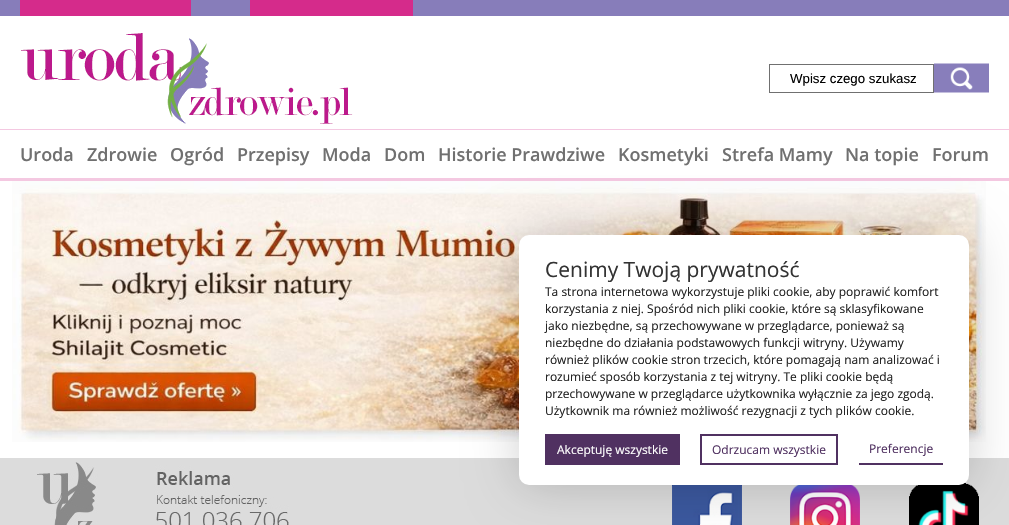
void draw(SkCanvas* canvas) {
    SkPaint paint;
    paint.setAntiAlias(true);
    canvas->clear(0xFFFFFFFF);
    paint.setColor(0xFF877DBA);
    canvas->drawRect(SkRect::MakeXYWH(0, 0, 1009, 16), paint);
    paint.setColor(0xFFD52B8B);
    canvas->drawRect(SkRect::MakeXYWH(20, 0, 171, 16), paint);
    canvas->drawRect(SkRect::MakeXYWH(250, 0, 163, 16), paint);
    canvas->drawImageRect(SkImages::DeferredFromEncodedData(SkData::MakeFromFileName("img1.png")), SkRect::MakeXYWH(21, 33, 332, 91), SkSamplingOptions());
    paint.setStyle(SkPaint::kStroke_Style);
    paint.setStrokeWidth(1);
    paint.setColor(0xFF707070);
    canvas->drawRect(SkRect::MakeXYWH(769.5f, 64.5f, 164, 28), paint);
    SkFont font1(fontMgr->matchFamilyStyle("Liberation Sans", SkFontStyle::Normal()), 13.25f);
    font1.setSubpixel(true);
    paint.setStyle(SkPaint::kFill_Style);
    paint.setColor(0xFF000000);
    canvas->drawString("Wpisz czego szukasz", 790, 83, font1, paint);
    canvas->drawImageRect(SkImages::DeferredFromEncodedData(SkData::MakeFromFileName("img2.png")), SkRect::MakeXYWH(934, 63, 55, 30), SkSamplingOptions());
    paint.setColor(0xFFF4C8E1);
    canvas->drawRect(SkRect::MakeXYWH(0, 129, 1009, 1), paint);
    canvas->drawRect(SkRect::MakeXYWH(0, 178, 1009, 3), paint);
    SkFont font2(fontMgr->matchFamilyStyle("Open Sans", SkFontStyle(600, SkFontStyle::kNormal_Width, SkFontStyle::kUpright_Slant)), 18);
    font2.setSubpixel(true);
    paint.setColor(0xFF707070);
    canvas->drawString("Uroda", 20, 161, font2, paint);
    canvas->drawString("Zdrowie", 87, 161, font2, paint);
    canvas->drawString("Ogród", 170, 161, font2, paint);
    canvas->drawString("Przepisy", 237, 161, font2, paint);
    canvas->drawString("Moda", 322, 161, font2, paint);
    canvas->drawString("Dom", 384, 161, font2, paint);
    canvas->drawString("Historie Prawdziwe", 438, 161, font2, paint);
    canvas->drawString("Kosmetyki", 618, 161, font2, paint);
    canvas->drawString("Strefa Mamy", 722, 161, font2, paint);
    canvas->drawString("Na topie", 845, 161, font2, paint);
    canvas->drawString("Forum", 932, 161, font2, paint);
    canvas->drawImageRect(SkImages::DeferredFromEncodedData(SkData::MakeFromFileName("img3.png")), SkRect::MakeXYWH(12, 181, 974, 261), SkSamplingOptions());
    paint.setColor(0xFFDCDCDC);
    canvas->drawRect(SkRect::MakeXYWH(0, 458, 1009, 67), paint);
    canvas->drawImageRect(SkImages::DeferredFromEncodedData(SkData::MakeFromFileName("img5.png")), SkRect::MakeXYWH(672, 485, 70, 40), SkSamplingOptions());
    canvas->drawImageRect(SkImages::DeferredFromEncodedData(SkData::MakeFromFileName("img6.png")), SkRect::MakeXYWH(790, 485, 70, 40), SkSamplingOptions());
    canvas->drawImageRect(SkImages::DeferredFromEncodedData(SkData::MakeFromFileName("img7.png")), SkRect::MakeXYWH(909, 483, 70, 42), SkSamplingOptions());
    paint.setColor(0x30000000);
    paint.setMaskFilter(SkMaskFilter::MakeBlur(kNormal_SkBlurStyle, 25));
    canvas->drawRoundRect(SkRect::MakeXYWH(519, 235, 450, 250), 10, 10, paint);
    paint.setMaskFilter(nullptr);
    paint.setColor(0xFFFFFFFF);
    canvas->drawRoundRect(SkRect::MakeXYWH(519, 235, 450, 250), 10, 10, paint);
    SkFont font3(fontMgr->matchFamilyStyle("Open Sans", SkFontStyle::Normal()), 21);
    font3.setSubpixel(true);
    paint.setColor(0xFF333333);
    canvas->drawString("Cenimy Twoją prywatność", 545, 277, font3, paint);
    SkFont font4(fontMgr->matchFamilyStyle("Open Sans", SkFontStyle::Normal()), 12);
    font4.setSubpixel(true);
    paint.setColor(0xFF222222);
    canvas->drawString("Ta strona internetowa wykorzystuje pliki cookie, aby poprawić komfort", 545, 296, font4, paint);
    canvas->drawString("korzystania z niej. Spośród nich pliki cookie, które są sklasyfikowane", 545, 313, font4, paint);
    canvas->drawString("jako niezbędne, są przechowywane w przeglądarce, ponieważ są", 545, 330, font4, paint);
    canvas->drawString("niezbędne do działania podstawowych funkcji witryny. Używamy", 545, 347, font4, paint);
    canvas->drawString("również plików cookie stron trzecich, które pomagają nam analizować i", 545, 364, font4, paint);
    canvas->drawString("rozumieć sposób korzystania z tej witryny. Te pliki cookie będą", 545, 381, font4, paint);
    canvas->drawString("przechowywane w przeglądarce użytkownika wyłącznie za jego zgodą.", 545, 398, font4, paint);
    canvas->drawString("Użytkownik ma również możliwość rezygnacji z tych plików cookie.", 545, 415, font4, paint);
    paint.setColor(0xFF503161);
    canvas->drawRect(SkRect::MakeXYWH(545, 434, 135, 31), paint);
    paint.setColor(0xFFFFFFFF);
    canvas->drawString("Akceptuję wszystkie", 557, 454, font4, paint);
    paint.setStyle(SkPaint::kStroke_Style);
    paint.setStrokeWidth(2);
    paint.setColor(0xFF503161);
    canvas->drawRect(SkRect::MakeXYWH(701, 435, 136, 29), paint);
    paint.setStyle(SkPaint::kFill_Style);
    canvas->drawString("Odrzucam wszystkie", 712, 454, font4, paint);
    canvas->drawRect(SkRect::MakeXYWH(859, 463, 84, 2), paint);
    canvas->drawString("Preferencje", 869, 453, font4, paint);
    canvas->drawImageRect(SkImages::DeferredFromEncodedData(SkData::MakeFromFileName("img4.png")), SkRect::MakeXYWH(37, 462, 252, 63), SkSamplingOptions());
}
